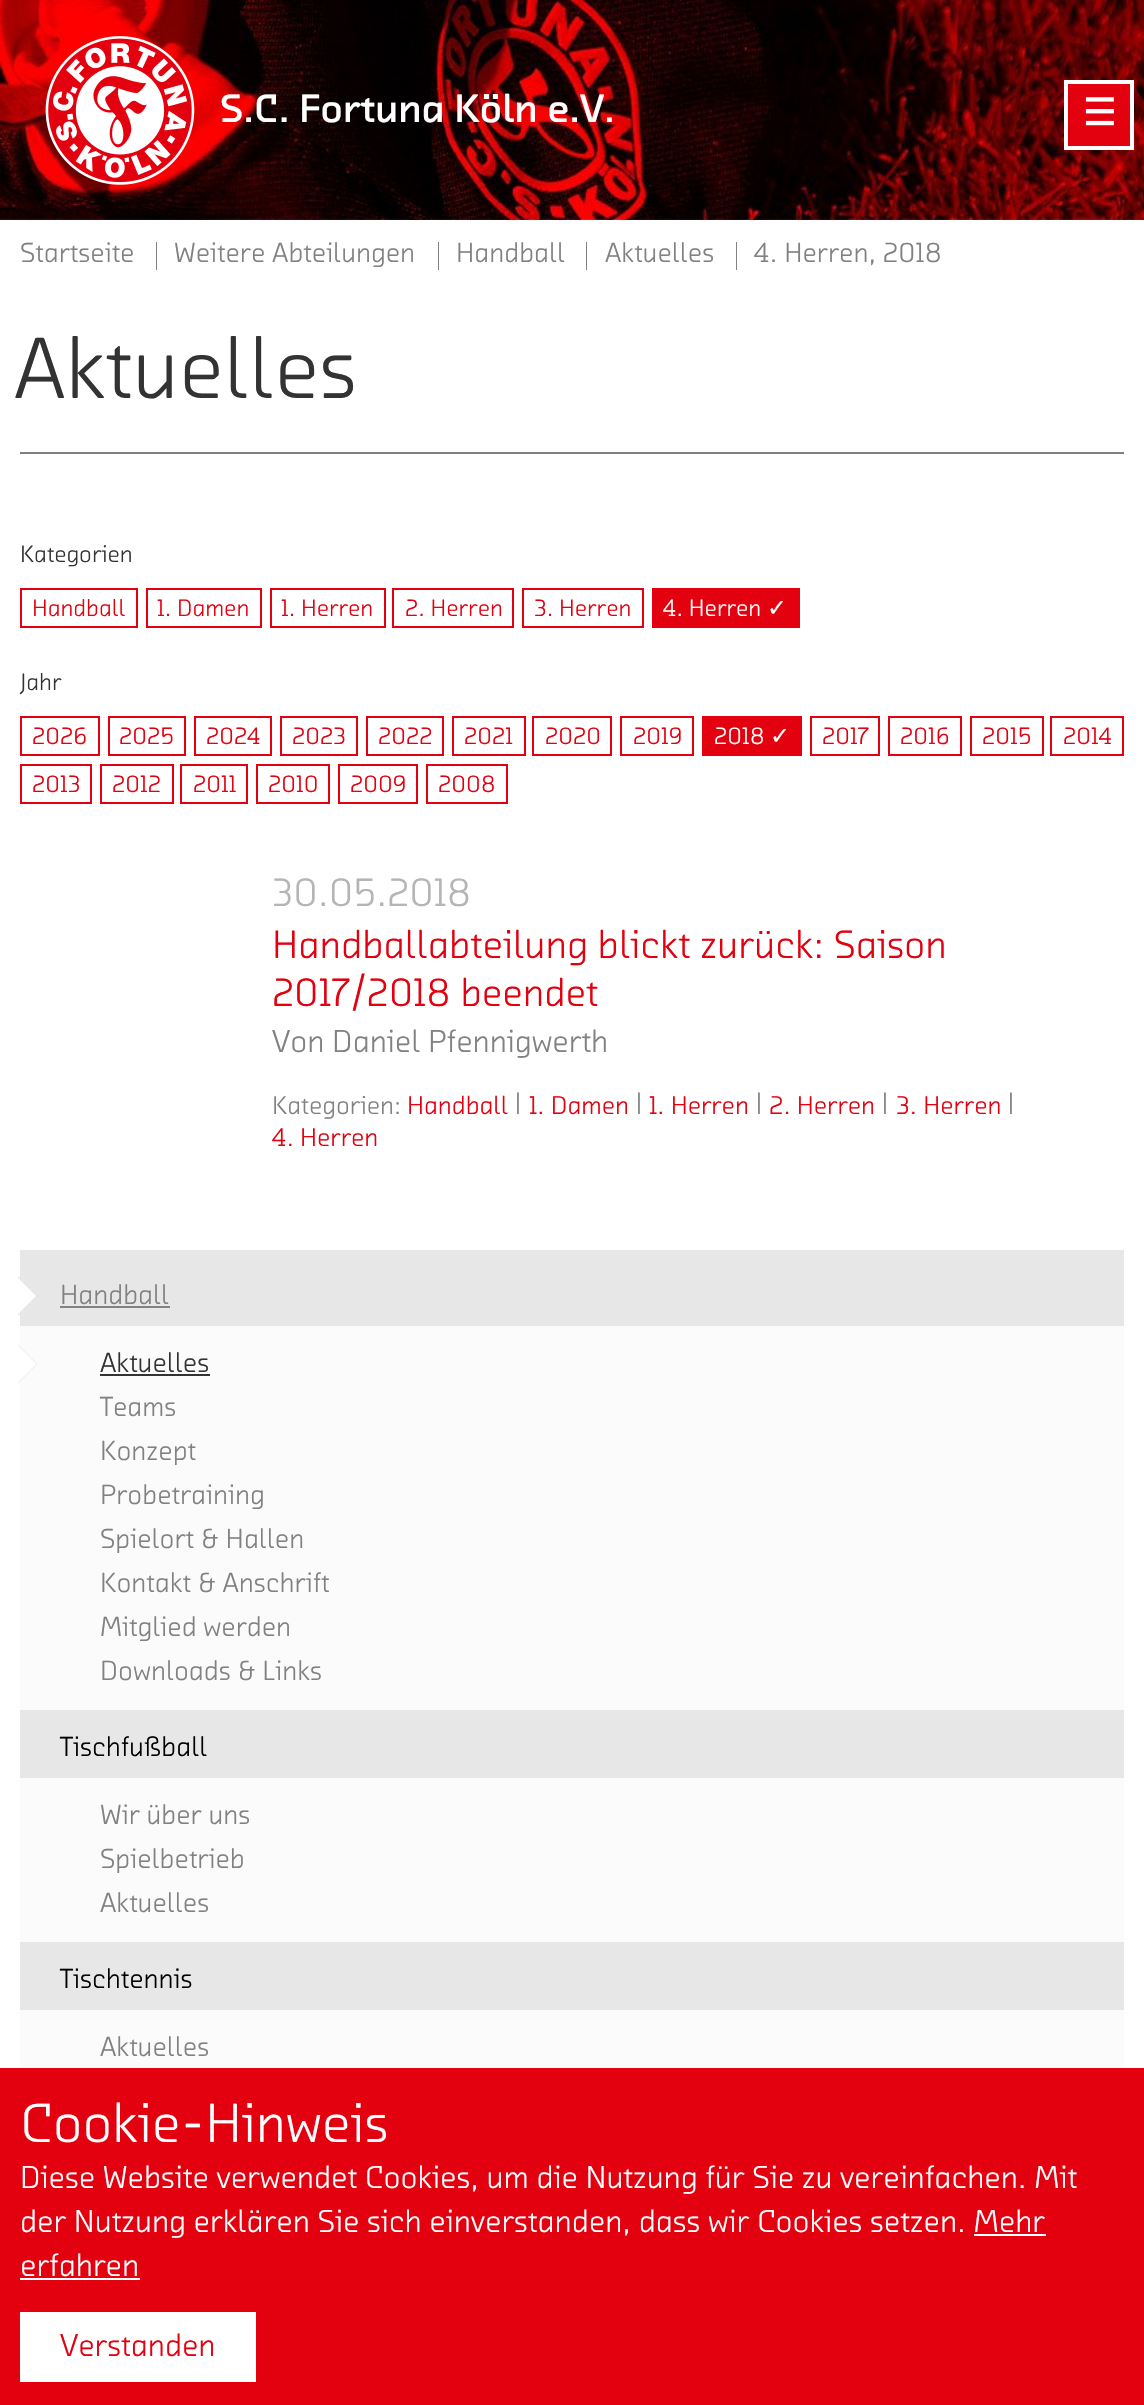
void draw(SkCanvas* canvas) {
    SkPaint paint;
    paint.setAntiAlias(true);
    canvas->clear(0xFFFFFFFF);
    canvas->drawImageRect(SkImages::DeferredFromEncodedData(SkData::MakeFromFileName("img2.png")), SkRect::MakeXYWH(0, 0, 1144, 220), SkSamplingOptions());
    paint.setColor(0xFFE3000F);
    canvas->drawRect(SkRect::MakeXYWH(1066, 82, 66, 66), paint);
    paint.setStyle(SkPaint::kStroke_Style);
    paint.setStrokeWidth(4);
    paint.setColor(0xFFFFFFFF);
    canvas->drawRect(SkRect::MakeXYWH(1066, 82, 66, 66), paint);
    canvas->drawImageRect(SkImages::DeferredFromEncodedData(SkData::MakeFromFileName("img1.png")), SkRect::MakeXYWH(1085, 97, 29, 29), SkSamplingOptions());
    canvas->drawImageRect(SkImages::DeferredFromEncodedData(SkData::MakeFromFileName("img3.png")), SkRect::MakeXYWH(45, 36, 150, 149), SkSamplingOptions());
    SkFont font1(fontMgr->matchFamilyStyle("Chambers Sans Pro", SkFontStyle::Bold()), 40);
    font1.setSubpixel(true);
    paint.setStyle(SkPaint::kFill_Style);
    canvas->drawString("S.C. Fortuna Köln e.V.", 220, 122, font1, paint);
    SkFont font2(fontMgr->matchFamilyStyle("Chambers Sans Pro", SkFontStyle::Normal()), 28);
    font2.setSubpixel(true);
    paint.setColor(0xFF818181);
    canvas->drawString("Startseite", 20, 262, font2, paint);
    canvas->drawString("Weitere Abteilungen", 174, 262, font2, paint);
    canvas->drawRect(SkRect::MakeXYWH(156, 242, 1, 28), paint);
    canvas->drawString("Handball", 456, 262, font2, paint);
    canvas->drawRect(SkRect::MakeXYWH(438, 242, 1, 28), paint);
    canvas->drawString("Aktuelles", 605, 262, font2, paint);
    canvas->drawRect(SkRect::MakeXYWH(586, 242, 1, 28), paint);
    canvas->drawString("4. Herren, 2018", 754, 262, font2, paint);
    canvas->drawRect(SkRect::MakeXYWH(736, 242, 1, 28), paint);
    SkFont font3(fontMgr->matchFamilyStyle("Chambers Sans Pro", SkFontStyle::Normal()), 88);
    font3.setSubpixel(true);
    paint.setColor(0xFF333333);
    canvas->drawString("Aktuelles", 14, 398, font3, paint);
    paint.setColor(0xFF818181);
    canvas->drawRect(SkRect::MakeXYWH(20, 452, 1104, 2), paint);
    SkFont font4(fontMgr->matchFamilyStyle("Chambers Sans Pro", SkFontStyle::Normal()), 24);
    font4.setSubpixel(true);
    paint.setColor(0xFF333333);
    canvas->drawString("Kategorien", 20, 562, font4, paint);
    paint.setStyle(SkPaint::kStroke_Style);
    paint.setStrokeWidth(2);
    paint.setColor(0xFFE3000F);
    canvas->drawRect(SkRect::MakeXYWH(21, 589, 116, 38), paint);
    paint.setStyle(SkPaint::kFill_Style);
    canvas->drawString("Handball", 32, 616, font4, paint);
    paint.setStyle(SkPaint::kStroke_Style);
    canvas->drawRect(SkRect::MakeXYWH(147, 589, 114, 38), paint);
    paint.setStyle(SkPaint::kFill_Style);
    canvas->drawString("1. Damen", 157, 616, font4, paint);
    paint.setStyle(SkPaint::kStroke_Style);
    canvas->drawRect(SkRect::MakeXYWH(271, 589, 114, 38), paint);
    paint.setStyle(SkPaint::kFill_Style);
    canvas->drawString("1. Herren", 281, 616, font4, paint);
    paint.setStyle(SkPaint::kStroke_Style);
    canvas->drawRect(SkRect::MakeXYWH(393, 589, 120, 38), paint);
    paint.setStyle(SkPaint::kFill_Style);
    canvas->drawString("2. Herren", 405, 616, font4, paint);
    paint.setStyle(SkPaint::kStroke_Style);
    canvas->drawRect(SkRect::MakeXYWH(523, 589, 120, 38), paint);
    paint.setStyle(SkPaint::kFill_Style);
    canvas->drawString("3. Herren", 534, 616, font4, paint);
    canvas->drawRect(SkRect::MakeXYWH(652, 588, 148, 40), paint);
    paint.setColor(0xFFFFFFFF);
    canvas->drawString("4. Herren", 663, 616, font4, paint);
    SkFont font5(fontMgr->matchFamilyStyle("DejaVu Sans", SkFontStyle::Normal()), 24);
    font5.setSubpixel(true);
    canvas->drawString("✓", 767, 616, font5, paint);
    paint.setColor(0xFF333333);
    canvas->drawString("Jahr", 20, 690, font4, paint);
    paint.setStyle(SkPaint::kStroke_Style);
    paint.setColor(0xFFE3000F);
    canvas->drawRect(SkRect::MakeXYWH(21, 717, 78, 38), paint);
    paint.setStyle(SkPaint::kFill_Style);
    canvas->drawString("2026", 32, 744, font4, paint);
    paint.setStyle(SkPaint::kStroke_Style);
    canvas->drawRect(SkRect::MakeXYWH(109, 717, 76, 38), paint);
    paint.setStyle(SkPaint::kFill_Style);
    canvas->drawString("2025", 119, 744, font4, paint);
    paint.setStyle(SkPaint::kStroke_Style);
    canvas->drawRect(SkRect::MakeXYWH(195, 717, 76, 38), paint);
    paint.setStyle(SkPaint::kFill_Style);
    canvas->drawString("2024", 206, 744, font4, paint);
    paint.setStyle(SkPaint::kStroke_Style);
    canvas->drawRect(SkRect::MakeXYWH(281, 717, 76, 38), paint);
    paint.setStyle(SkPaint::kFill_Style);
    canvas->drawString("2023", 292, 744, font4, paint);
    paint.setStyle(SkPaint::kStroke_Style);
    canvas->drawRect(SkRect::MakeXYWH(367, 717, 76, 38), paint);
    paint.setStyle(SkPaint::kFill_Style);
    canvas->drawString("2022", 378, 744, font4, paint);
    paint.setStyle(SkPaint::kStroke_Style);
    canvas->drawRect(SkRect::MakeXYWH(453, 717, 72, 38), paint);
    paint.setStyle(SkPaint::kFill_Style);
    canvas->drawString("2021", 464, 744, font4, paint);
    paint.setStyle(SkPaint::kStroke_Style);
    canvas->drawRect(SkRect::MakeXYWH(533, 717, 78, 38), paint);
    paint.setStyle(SkPaint::kFill_Style);
    canvas->drawString("2020", 545, 744, font4, paint);
    paint.setStyle(SkPaint::kStroke_Style);
    canvas->drawRect(SkRect::MakeXYWH(621, 717, 72, 38), paint);
    paint.setStyle(SkPaint::kFill_Style);
    canvas->drawString("2019", 633, 744, font4, paint);
    canvas->drawRect(SkRect::MakeXYWH(702, 716, 100, 40), paint);
    paint.setColor(0xFFFFFFFF);
    canvas->drawString("2018", 714, 744, font4, paint);
    canvas->drawString("✓", 770, 744, font5, paint);
    paint.setStyle(SkPaint::kStroke_Style);
    paint.setColor(0xFFE3000F);
    canvas->drawRect(SkRect::MakeXYWH(811, 717, 68, 38), paint);
    paint.setStyle(SkPaint::kFill_Style);
    canvas->drawString("2017", 822, 744, font4, paint);
    paint.setStyle(SkPaint::kStroke_Style);
    canvas->drawRect(SkRect::MakeXYWH(889, 717, 72, 38), paint);
    paint.setStyle(SkPaint::kFill_Style);
    canvas->drawString("2016", 900, 744, font4, paint);
    paint.setStyle(SkPaint::kStroke_Style);
    canvas->drawRect(SkRect::MakeXYWH(971, 717, 72, 38), paint);
    paint.setStyle(SkPaint::kFill_Style);
    canvas->drawString("2015", 982, 744, font4, paint);
    paint.setStyle(SkPaint::kStroke_Style);
    canvas->drawRect(SkRect::MakeXYWH(1051, 717, 72, 38), paint);
    paint.setStyle(SkPaint::kFill_Style);
    canvas->drawString("2014", 1063, 744, font4, paint);
    paint.setStyle(SkPaint::kStroke_Style);
    canvas->drawRect(SkRect::MakeXYWH(21, 765, 70, 38), paint);
    paint.setStyle(SkPaint::kFill_Style);
    canvas->drawString("2013", 32, 792, font4, paint);
    paint.setStyle(SkPaint::kStroke_Style);
    canvas->drawRect(SkRect::MakeXYWH(101, 765, 72, 38), paint);
    paint.setStyle(SkPaint::kFill_Style);
    canvas->drawString("2012", 112, 792, font4, paint);
    paint.setStyle(SkPaint::kStroke_Style);
    canvas->drawRect(SkRect::MakeXYWH(181, 765, 66, 38), paint);
    paint.setStyle(SkPaint::kFill_Style);
    canvas->drawString("2011", 193, 792, font4, paint);
    paint.setStyle(SkPaint::kStroke_Style);
    canvas->drawRect(SkRect::MakeXYWH(257, 765, 72, 38), paint);
    paint.setStyle(SkPaint::kFill_Style);
    canvas->drawString("2010", 268, 792, font4, paint);
    paint.setStyle(SkPaint::kStroke_Style);
    canvas->drawRect(SkRect::MakeXYWH(339, 765, 78, 38), paint);
    paint.setStyle(SkPaint::kFill_Style);
    canvas->drawString("2009", 350, 792, font4, paint);
    paint.setStyle(SkPaint::kStroke_Style);
    canvas->drawRect(SkRect::MakeXYWH(427, 765, 80, 38), paint);
    paint.setStyle(SkPaint::kFill_Style);
    canvas->drawString("2008", 438, 792, font4, paint);
    SkFont font6(fontMgr->matchFamilyStyle("Chambers Sans Pro", SkFontStyle::Normal()), 40);
    font6.setSubpixel(true);
    paint.setColor(0xFFB5B5B5);
    canvas->drawString("30.05.2018", 272, 906, font6, paint);
    paint.setColor(0xFFE3000F);
    canvas->drawString("Handballabteilung blickt zurück: Saison", 272, 958, font6, paint);
    canvas->drawString("2017/2018 beendet", 272, 1006, font6, paint);
    SkFont font7(fontMgr->matchFamilyStyle("Chambers Sans Pro", SkFontStyle::Normal()), 32);
    font7.setSubpixel(true);
    paint.setColor(0xFF818181);
    canvas->drawString("Von Daniel Pfennigwerth", 272, 1052, font7, paint);
    SkFont font8(fontMgr->matchFamilyStyle("Chambers Sans Pro", SkFontStyle::Normal()), 26);
    font8.setSubpixel(true);
    canvas->drawString("|", 1007, 1114, font8, paint);
    paint.setColor(0xFFE3000F);
    canvas->drawString("4. Herren", 272, 1146, font8, paint);
    canvas->drawString("Handball", 407, 1114, font8, paint);
    paint.setColor(0xFF818181);
    canvas->drawString("|", 514, 1114, font8, paint);
    paint.setColor(0xFFE3000F);
    canvas->drawString("1. Damen", 529, 1114, font8, paint);
    paint.setColor(0xFF818181);
    canvas->drawString("|", 635, 1114, font8, paint);
    paint.setColor(0xFFE3000F);
    canvas->drawString("1. Herren", 649, 1114, font8, paint);
    paint.setColor(0xFF818181);
    canvas->drawString("|", 755, 1114, font8, paint);
    paint.setColor(0xFFE3000F);
    canvas->drawString("2. Herren", 769, 1114, font8, paint);
    paint.setColor(0xFF818181);
    canvas->drawString("|", 881, 1114, font8, paint);
    paint.setColor(0xFFE3000F);
    canvas->drawString("3. Herren", 896, 1114, font8, paint);
    paint.setColor(0xFF818181);
    canvas->drawString("Kategorien:", 272, 1114, font8, paint);
    paint.setColor(0xFFE7E7E7);
    canvas->drawRect(SkRect::MakeXYWH(20, 1250, 1104, 760), paint);
    canvas->drawPath(SkPathBuilder().moveTo(18, 1316).lineTo(18, 1276).lineTo(38, 1296).close().detach(), paint);
    paint.setColor(0xFFFFFFFF);
    canvas->drawPath(SkPathBuilder().moveTo(16, 1316).lineTo(16, 1276).lineTo(36, 1296).close().detach(), paint);
    paint.setColor(0xFF818181);
    canvas->drawString("Handball", 60, 1304, font2, paint);
    canvas->drawRect(SkRect::MakeXYWH(60, 1306, 110, 2), paint);
    paint.setColor(0xFFFBFBFB);
    canvas->drawRect(SkRect::MakeXYWH(20, 1326, 1104, 384), paint);
    paint.setColor(0xFFF3F3F3);
    canvas->drawPath(SkPathBuilder().moveTo(18, 1384).lineTo(18, 1344).lineTo(38, 1364).close().detach(), paint);
    paint.setColor(0xFFFFFFFF);
    canvas->drawPath(SkPathBuilder().moveTo(16, 1384).lineTo(16, 1344).lineTo(36, 1364).close().detach(), paint);
    paint.setColor(0xFF333333);
    canvas->drawString("Aktuelles", 100, 1372, font2, paint);
    canvas->drawRect(SkRect::MakeXYWH(100, 1374, 110, 2), paint);
    paint.setColor(0xFF818181);
    canvas->drawString("Teams", 100, 1416, font2, paint);
    canvas->drawString("Konzept", 100, 1460, font2, paint);
    canvas->drawString("Probetraining", 100, 1504, font2, paint);
    canvas->drawString("Spielort & Hallen", 100, 1548, font2, paint);
    canvas->drawString("Kontakt & Anschrift", 100, 1592, font2, paint);
    canvas->drawString("Mitglied werden", 100, 1636, font2, paint);
    canvas->drawString("Downloads & Links", 100, 1680, font2, paint);
    paint.setColor(0xFF000000);
    canvas->drawString("Tischfußball", 60, 1756, font2, paint);
    paint.setColor(0xFFFBFBFB);
    canvas->drawRect(SkRect::MakeXYWH(20, 1778, 1104, 164), paint);
    paint.setColor(0xFF818181);
    canvas->drawString("Wir über uns", 100, 1824, font2, paint);
    canvas->drawString("Spielbetrieb", 100, 1868, font2, paint);
    canvas->drawString("Aktuelles", 100, 1912, font2, paint);
    paint.setColor(0xFF000000);
    canvas->drawString("Tischtennis", 60, 1988, font2, paint);
    paint.setColor(0xFFFBFBFB);
    canvas->drawRect(SkRect::MakeXYWH(20, 2010, 1104, 58), paint);
    paint.setColor(0xFF818181);
    canvas->drawString("Aktuelles", 100, 2056, font2, paint);
    paint.setColor(0xFFE3000F);
    canvas->drawRect(SkRect::MakeXYWH(0, 2068, 1144, 337), paint);
    SkFont font9(fontMgr->matchFamilyStyle("Chambers Sans Pro", SkFontStyle::Normal()), 56);
    font9.setSubpixel(true);
    paint.setColor(0xFFFFFFFF);
    canvas->drawString("Cookie-Hinweis", 20, 2142, font9, paint);
    canvas->drawString("Diese Website verwendet Cookies, um die Nutzung für Sie zu vereinfachen. Mit", 20, 2188, font7, paint);
    canvas->drawString("der Nutzung erklären Sie sich einverstanden, dass wir Cookies setzen. Mehr", 20, 2232, font7, paint);
    canvas->drawString("erfahren", 20, 2276, font7, paint);
    canvas->drawRect(SkRect::MakeXYWH(974, 2234, 72, 2), paint);
    canvas->drawRect(SkRect::MakeXYWH(20, 2278, 120, 2), paint);
    canvas->drawRect(SkRect::MakeXYWH(20, 2312, 236, 70), paint);
    paint.setColor(0xFFE3000F);
    canvas->drawString("Verstanden", 60, 2356, font7, paint);
}
